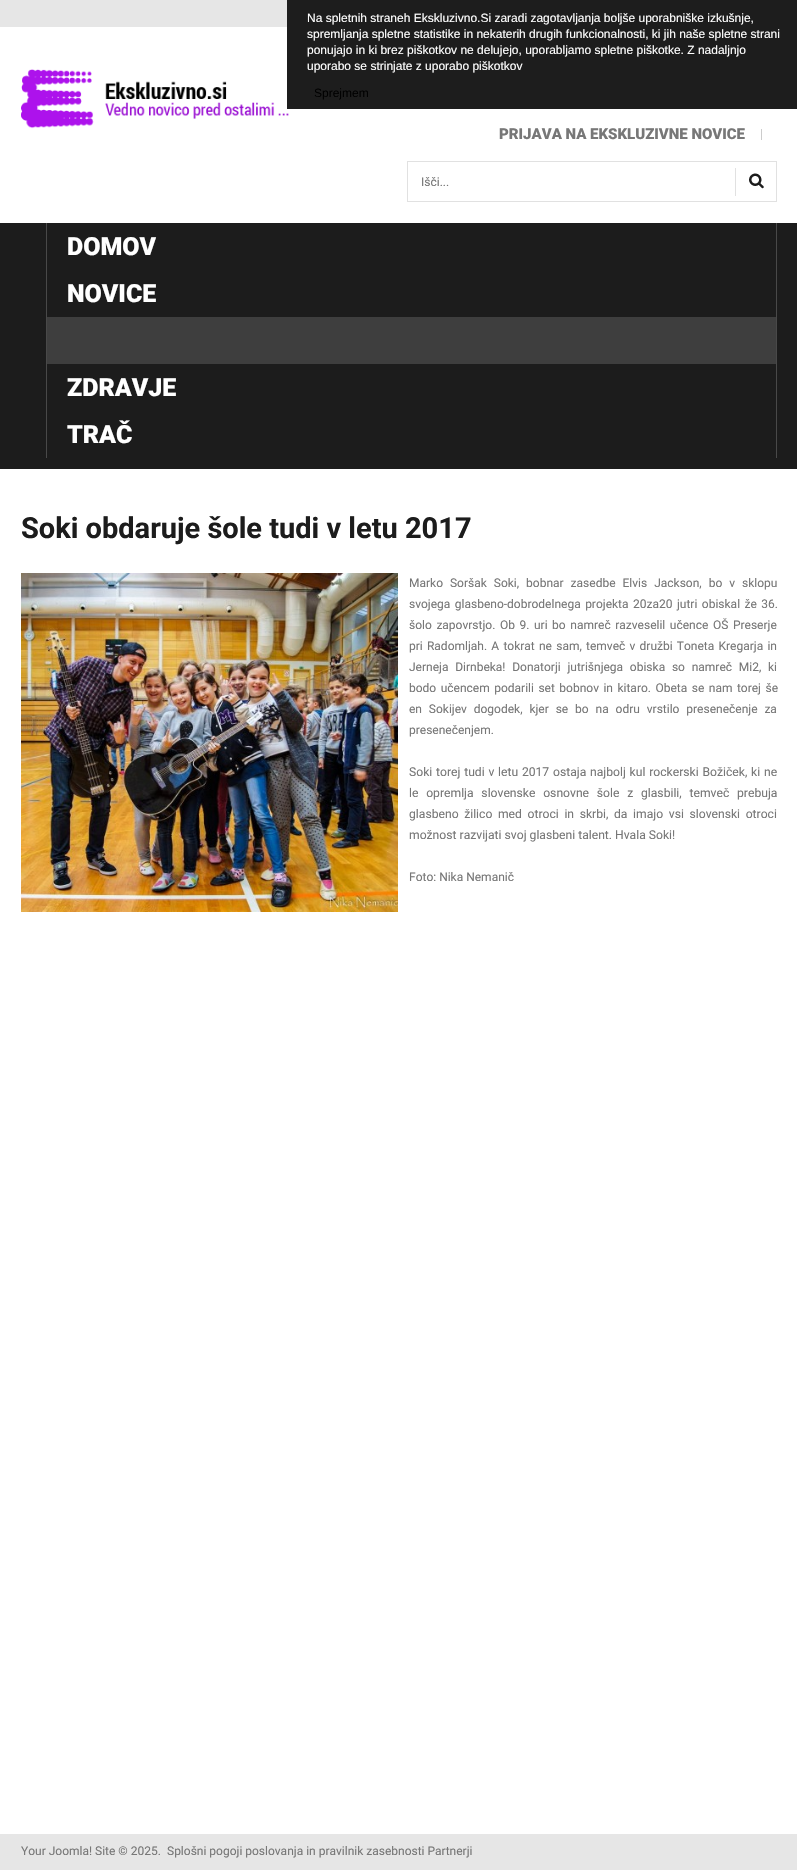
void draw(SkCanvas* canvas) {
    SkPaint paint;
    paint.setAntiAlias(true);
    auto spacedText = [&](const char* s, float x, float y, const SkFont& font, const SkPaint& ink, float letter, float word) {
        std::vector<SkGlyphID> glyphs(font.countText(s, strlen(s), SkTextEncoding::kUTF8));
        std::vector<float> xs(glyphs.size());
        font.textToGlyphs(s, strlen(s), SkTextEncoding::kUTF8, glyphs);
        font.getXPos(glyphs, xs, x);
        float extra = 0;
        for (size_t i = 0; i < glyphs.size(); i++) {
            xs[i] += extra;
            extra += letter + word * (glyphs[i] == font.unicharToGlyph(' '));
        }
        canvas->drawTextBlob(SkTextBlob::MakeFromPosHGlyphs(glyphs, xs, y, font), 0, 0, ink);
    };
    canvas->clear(0xFFFFFFFF);
    canvas->drawImageRect(SkImages::DeferredFromEncodedData(SkData::MakeFromFileName("img2.png")), SkRect::MakeXYWH(21, 69, 268, 60), SkSamplingOptions());
    paint.setColor(0xFF1D1D1D);
    canvas->drawRect(SkRect::MakeXYWH(287, 0, 510, 109), paint);
    SkFont font1(fontMgr->matchFamilyStyle("Liberation Sans", SkFontStyle::Normal()), 12);
    font1.setSubpixel(true);
    paint.setColor(0xFFFFFFFF);
    canvas->drawString("Na spletnih straneh Ekskluzivno.Si zaradi zagotavljanja boljše uporabniške izkušnje,", 307, 22, font1, paint);
    canvas->drawString("spremljanja spletne statistike in nekaterih drugih funkcionalnosti, ki jih naše spletne strani", 307, 38, font1, paint);
    canvas->drawString("ponujajo in ki brez piškotkov ne delujejo, uporabljamo spletne piškotke. Z nadaljnjo", 307, 54, font1, paint);
    canvas->drawString("uporabo se strinjate z uporabo piškotkov", 307, 70, font1, paint);
    paint.setColor(0xFF000000);
    canvas->drawString("Sprejmem", 314, 97, font1, paint);
    canvas->drawImageRect(SkImages::DeferredFromEncodedData(SkData::MakeFromFileName("img1.png")), SkRect::MakeXYWH(0, 0, 287, 27), SkSamplingOptions());
    paint.setColor(0xFFCCCCCC);
    canvas->drawRect(SkRect::MakeXYWH(761, 129, 1, 11), paint);
    SkFont font2(fontMgr->matchFamilyStyle("Roboto", SkFontStyle(900, SkFontStyle::kNormal_Width, SkFontStyle::kUpright_Slant)), 15);
    font2.setSubpixel(true);
    paint.setColor(0xFF777777);
    canvas->drawString("PRIJAVA NA EKSKLUZIVNE NOVICE", 499, 139, font2, paint);
    paint.setStyle(SkPaint::kStroke_Style);
    paint.setStrokeWidth(1);
    paint.setColor(0xFFE1E1E1);
    canvas->drawRect(SkRect::MakeXYWH(407.5f, 161.5f, 369, 40), paint);
    SkFont font3(fontMgr->matchFamilyStyle("Roboto", SkFontStyle::Normal()), 12);
    font3.setSubpixel(true);
    paint.setStyle(SkPaint::kFill_Style);
    paint.setColor(0xFF777777);
    canvas->drawString("Išči...", 421, 186, font3, paint);
    paint.setColor(0xFFE1E1E1);
    canvas->drawRect(SkRect::MakeXYWH(735, 168, 1, 28), paint);
    canvas->drawImageRect(SkImages::DeferredFromEncodedData(SkData::MakeFromFileName("img3.png")), SkRect::MakeXYWH(749, 173, 15, 16), SkSamplingOptions());
    paint.setColor(0xFF1C1C1C);
    canvas->drawRect(SkRect::MakeXYWH(0, 223, 797, 246), paint);
    paint.setColor(0xFF494949);
    canvas->drawRect(SkRect::MakeXYWH(46, 223, 1, 235), paint);
    canvas->drawRect(SkRect::MakeXYWH(776, 223, 1, 235), paint);
    SkFont font4(fontMgr->matchFamilyStyle("Roboto", SkFontStyle(900, SkFontStyle::kNormal_Width, SkFontStyle::kUpright_Slant)), 25);
    font4.setSubpixel(true);
    paint.setColor(0xFFFFFFFF);
    canvas->drawString("DOMOV", 67, 255, font4, paint);
    canvas->drawString("NOVICE", 67, 302, font4, paint);
    paint.setColor(0xFF3E3E3E);
    canvas->drawRect(SkRect::MakeXYWH(47, 317, 729, 47), paint);
    paint.setColor(0xFFFFFFFF);
    canvas->drawString("ZDRAVJE", 67, 396, font4, paint);
    canvas->drawString("TRAČ", 67, 443, font4, paint);
    SkFont font5(fontMgr->matchFamilyStyle("Roboto", SkFontStyle::Bold()), 29);
    font5.setSubpixel(true);
    paint.setColor(0xFF1C1C1C);
    canvas->drawString("Soki obdaruje šole tudi v letu 2017", 21, 538, font5, paint);
    canvas->drawImageRect(SkImages::DeferredFromEncodedData(SkData::MakeFromFileName("img4.png")), SkRect::MakeXYWH(21, 573, 377, 339), SkSamplingOptions());
    paint.setColor(0xFF777777);
    spacedText("Marko Soršak Soki, bobnar zasedbe Elvis Jackson, bo v sklopu", 409, 587, font3, paint, 0, 4);
    spacedText("svojega glasbeno-dobrodelnega projekta 20za20 jutri obiskal že 36.", 409, 608, font3, paint, 0, 1.5f);
    spacedText("šolo zapovrstjo. Ob 9. uri bo namreč razveselil učence OŠ Preserje", 409, 629, font3, paint, 0, 1.6f);
    spacedText("pri Radomljah. A tokrat ne sam, temveč v družbi Toneta Kregarja in", 409, 650, font3, paint, 0, 1.25f);
    spacedText("Jerneja Dirnbeka! Donatorji jutrišnjega obiska so namreč Mi2, ki", 409, 671, font3, paint, 0, 3.75f);
    spacedText("bodo učencem podarili set bobnov in kitaro. Obeta se nam torej še", 409, 692, font3, paint, 0, 1.5f);
    spacedText("en Sokijev dogodek, kjer se bo na odru vrstilo presenečenje za", 409, 713, font3, paint, 0, 3.9f);
    canvas->drawString("presenečenjem.", 409, 734, font3, paint);
    SkFont font6(fontMgr->matchFamilyStyle("Roboto", SkFontStyle::Normal()), 12.15f);
    font6.setSubpixel(true);
    spacedText("Soki torej tudi v letu 2017 ostaja najbolj kul rockerski Božiček, ki ne", 409, 776, font6, paint, 0, 0.75f);
    spacedText("le opremlja slovenske osnovne šole z glasbili, temveč prebuja", 409, 797, font6, paint, 0, 4.75f);
    spacedText("glasbeno žilico med otroci in skrbi, da imajo vsi slovenski otroci", 409, 818, font6, paint, 0, 2.6f);
    canvas->drawString("možnost razvijati svoj glasbeni talent. Hvala Soki!", 409, 839, font6, paint);
    canvas->drawString("Foto: Nika Nemanič", 409, 881, font3, paint);
    paint.setColor(0xFFE6E6E6);
    canvas->drawRect(SkRect::MakeXYWH(0, 1834, 797, 36), paint);
    paint.setColor(0xFF777777);
    canvas->drawString("Your Joomla! Site © 2025.", 21, 1855, font3, paint);
    canvas->drawString("Splošni pogoji poslovanja in pravilnik zasebnosti Partnerji", 167, 1855, font3, paint);
}
